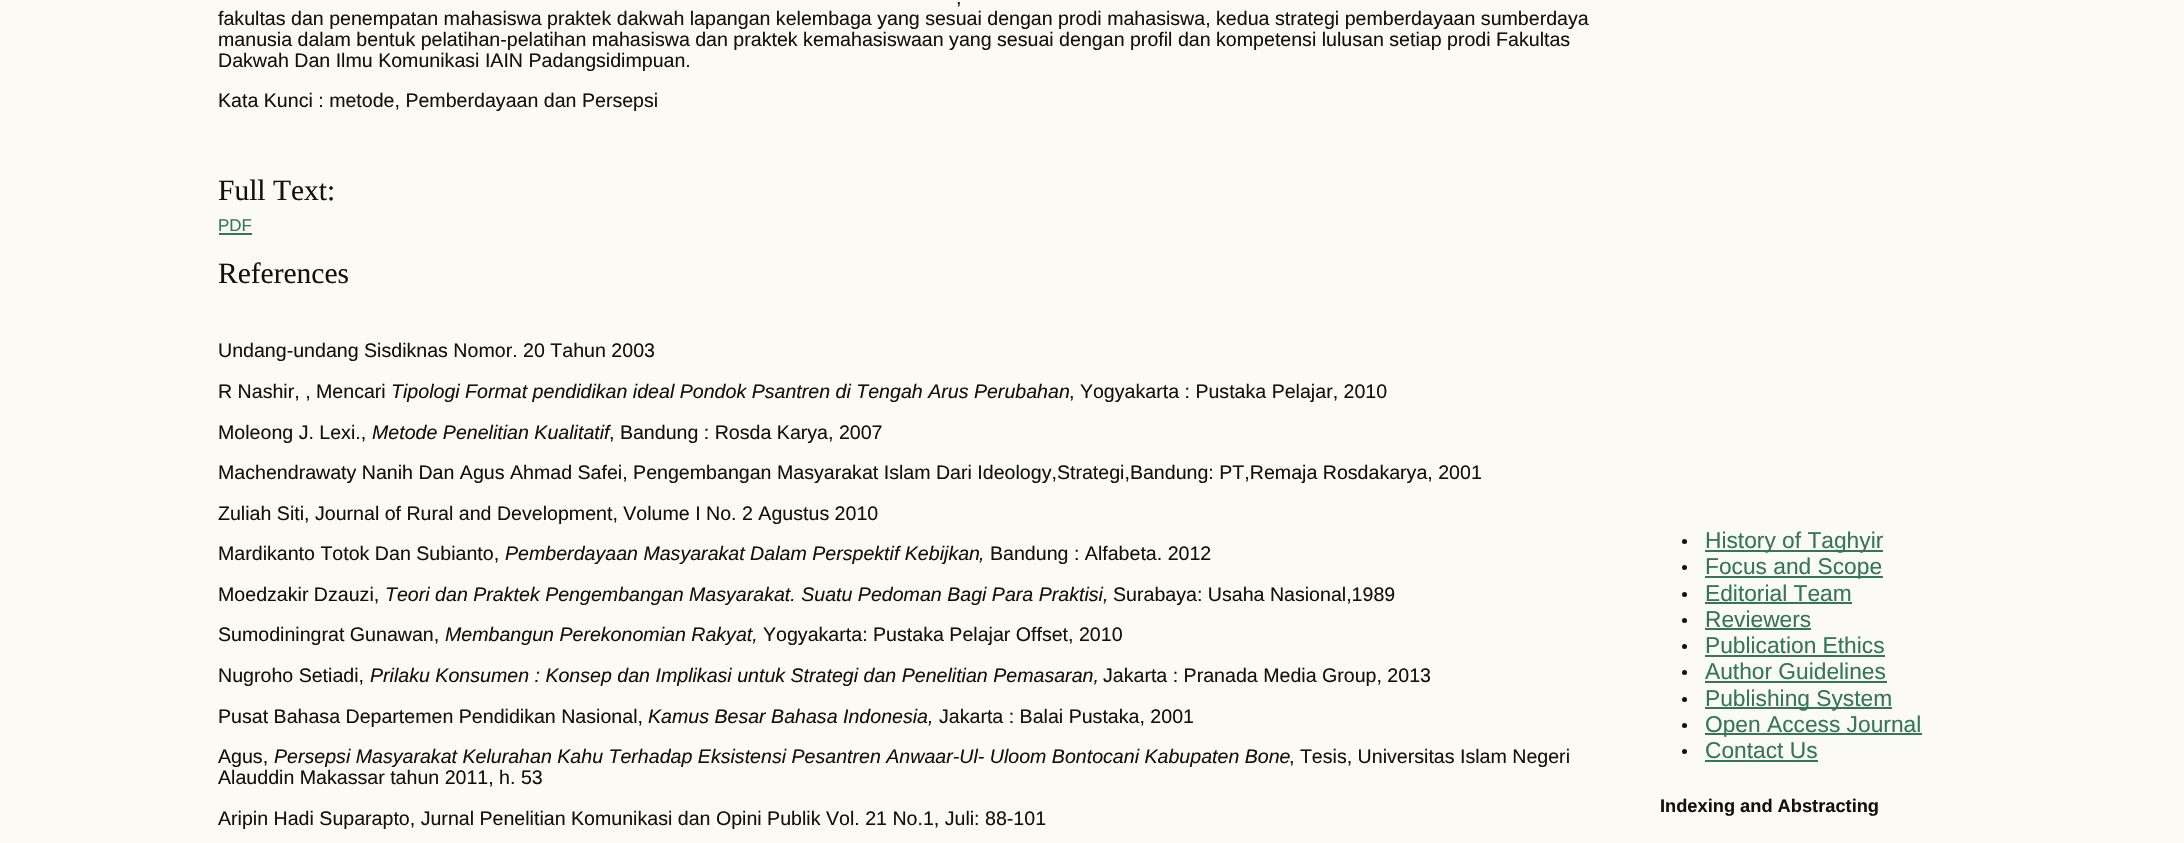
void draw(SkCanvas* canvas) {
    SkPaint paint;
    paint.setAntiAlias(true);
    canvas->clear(0xFFFBFBF3);
    SkFont font1(fontMgr->matchFamilyStyle("Liberation Sans", SkFontStyle::Normal()), 19.6f);
    font1.setSubpixel(true);
    paint.setColor(0xFF111111);
    canvas->drawString(",", 956, 4, font1, paint);
    canvas->drawString("fakultas dan penempatan mahasiswa praktek dakwah lapangan kelembaga yang sesuai dengan prodi mahasiswa, kedua strategi pemberdayaan sumberdaya", 218, 25, font1, paint);
    canvas->drawString("manusia dalam bentuk pelatihan-pelatihan mahasiswa dan praktek kemahasiswaan yang sesuai dengan profil dan kompetensi lulusan setiap prodi Fakultas", 218, 46, font1, paint);
    canvas->drawString("Dakwah Dan Ilmu Komunikasi IAIN Padangsidimpuan.", 218, 67, font1, paint);
    canvas->drawString("Kata Kunci : metode, Pemberdayaan dan Persepsi", 218, 107, font1, paint);
    SkFont font2(fontMgr->matchFamilyStyle("Liberation Serif", SkFontStyle::Normal()), 29.5f);
    font2.setSubpixel(true);
    canvas->drawString("Full Text:", 218, 200, font2, paint);
    SkFont font3(fontMgr->matchFamilyStyle("Liberation Sans", SkFontStyle::Normal()), 17);
    font3.setSubpixel(true);
    paint.setColor(0xFF337755);
    canvas->drawString("PDF", 218, 231, font3, paint);
    canvas->drawRect(SkRect::MakeXYWH(219, 233, 33, 2), paint);
    paint.setColor(0xFF111111);
    canvas->drawString("References", 218, 283, font2, paint);
    canvas->drawString("Undang-undang Sisdiknas Nomor. 20 Tahun 2003", 218, 357, font1, paint);
    canvas->drawString("R Nashir, , Mencari", 218, 398, font1, paint);
    SkFont font4(fontMgr->matchFamilyStyle("Liberation Sans", SkFontStyle::Italic()), 19.6f);
    font4.setSubpixel(true);
    canvas->drawString("Tipologi Format pendidikan ideal Pondok Psantren di Tengah Arus Perubahan", 391, 398, font4, paint);
    canvas->drawString(", Yogyakarta : Pustaka Pelajar, 2010", 1069, 398, font1, paint);
    canvas->drawString("Moleong J. Lexi.,", 218, 439, font1, paint);
    canvas->drawString("Metode Penelitian Kualitatif", 372, 439, font4, paint);
    canvas->drawString(", Bandung : Rosda Karya, 2007", 609, 439, font1, paint);
    canvas->drawString("Machendrawaty Nanih Dan Agus Ahmad Safei, Pengembangan Masyarakat Islam Dari Ideology,Strategi,Bandung: PT,Remaja Rosdakarya, 2001", 218, 479, font1, paint);
    canvas->drawString("Zuliah Siti, Journal of Rural and Development, Volume I No. 2 Agustus 2010", 218, 520, font1, paint);
    canvas->drawString("Mardikanto Totok Dan Subianto,", 218, 560, font1, paint);
    canvas->drawString("Pemberdayaan Masyarakat Dalam Perspektif Kebijkan", 505, 560, font4, paint);
    canvas->drawString(",", 979, 560, font4, paint);
    canvas->drawString("Bandung : Alfabeta. 2012", 990, 560, font1, paint);
    canvas->drawString("Moedzakir Dzauzi,", 218, 601, font1, paint);
    canvas->drawString("Teori dan Praktek Pengembangan Masyarakat. Suatu Pedoman Bagi Para Praktisi,", 385, 601, font4, paint);
    canvas->drawString("Surabaya: Usaha Nasional,1989", 1113, 601, font1, paint);
    canvas->drawString("Sumodiningrat Gunawan,", 218, 641, font1, paint);
    canvas->drawString("Membangun Perekonomian Rakyat,", 445, 641, font4, paint);
    canvas->drawString("Yogyakarta: Pustaka Pelajar Offset, 2010", 763, 641, font1, paint);
    canvas->drawString("Nugroho Setiadi,", 218, 682, font1, paint);
    canvas->drawString("Prilaku Konsumen : Konsep dan Implikasi untuk Strategi dan Penelitian Pemasaran,", 370, 682, font4, paint);
    canvas->drawString("Jakarta : Pranada Media Group, 2013", 1103, 682, font1, paint);
    canvas->drawString("Pusat Bahasa Departemen Pendidikan Nasional,", 218, 723, font1, paint);
    canvas->drawString("Kamus Besar Bahasa Indonesia,", 648, 723, font4, paint);
    canvas->drawString("Jakarta : Balai Pustaka, 2001", 939, 723, font1, paint);
    canvas->drawString("Agus,", 218, 763, font1, paint);
    canvas->drawString("Persepsi Masyarakat Kelurahan Kahu Terhadap Eksistensi Pesantren Anwaar-Ul- Uloom Bontocani Kabupaten Bone", 274, 763, font4, paint);
    canvas->drawString(", Tesis, Universitas Islam Negeri", 1289, 763, font1, paint);
    canvas->drawString("Alauddin Makassar tahun 2011, h. 53", 218, 784, font1, paint);
    canvas->drawString("Aripin Hadi Suparapto, Jurnal Penelitian Komunikasi dan Opini Publik Vol. 21 No.1, Juli: 88-101", 218, 825, font1, paint);
    canvas->drawCircle(1684.5f, 541.5f, 2.5f, paint);
    paint.setColor(0xFF337755);
    canvas->drawRect(SkRect::MakeXYWH(1705, 550, 178, 2), paint);
    SkFont font5(fontMgr->matchFamilyStyle("Liberation Sans", SkFontStyle::Normal()), 22.75f);
    font5.setSubpixel(true);
    canvas->drawString("History of Taghyir", 1705, 548, font5, paint);
    paint.setColor(0xFF111111);
    canvas->drawCircle(1684.5f, 567.5f, 2.5f, paint);
    paint.setColor(0xFF337755);
    canvas->drawRect(SkRect::MakeXYWH(1705, 576, 178, 2), paint);
    canvas->drawString("Focus and Scope", 1705, 574, font5, paint);
    paint.setColor(0xFF111111);
    canvas->drawCircle(1684.5f, 594.5f, 2.5f, paint);
    paint.setColor(0xFF337755);
    canvas->drawString("Editorial Team", 1705, 601, font5, paint);
    canvas->drawRect(SkRect::MakeXYWH(1705, 602, 147, 2), paint);
    paint.setColor(0xFF111111);
    canvas->drawCircle(1684.5f, 620.5f, 2.5f, paint);
    paint.setColor(0xFF337755);
    canvas->drawString("Reviewers", 1705, 627, font5, paint);
    canvas->drawRect(SkRect::MakeXYWH(1705, 628, 106, 2), paint);
    paint.setColor(0xFF111111);
    canvas->drawCircle(1684.5f, 646.5f, 2.5f, paint);
    paint.setColor(0xFF337755);
    canvas->drawString("Publication Ethics", 1705, 653, font5, paint);
    canvas->drawRect(SkRect::MakeXYWH(1705, 655, 180, 2), paint);
    paint.setColor(0xFF111111);
    canvas->drawCircle(1684.5f, 672.5f, 2.5f, paint);
    paint.setColor(0xFF337755);
    canvas->drawString("Author Guidelines", 1705, 679, font5, paint);
    canvas->drawRect(SkRect::MakeXYWH(1705, 681, 182, 2), paint);
    paint.setColor(0xFF111111);
    canvas->drawCircle(1684.5f, 699.5f, 2.5f, paint);
    paint.setColor(0xFF337755);
    canvas->drawRect(SkRect::MakeXYWH(1705, 707, 187, 2), paint);
    canvas->drawString("Publishing System", 1705, 706, font5, paint);
    paint.setColor(0xFF111111);
    canvas->drawCircle(1684.5f, 725.5f, 2.5f, paint);
    paint.setColor(0xFF337755);
    canvas->drawRect(SkRect::MakeXYWH(1705, 733, 217, 2), paint);
    canvas->drawString("Open Access Journal", 1705, 732, font5, paint);
    paint.setColor(0xFF111111);
    canvas->drawCircle(1684.5f, 751.5f, 2.5f, paint);
    paint.setColor(0xFF337755);
    canvas->drawString("Contact Us", 1705, 758, font5, paint);
    canvas->drawRect(SkRect::MakeXYWH(1705, 760, 113, 2), paint);
    SkFont font6(fontMgr->matchFamilyStyle("Liberation Sans", SkFontStyle::Bold()), 18.25f);
    font6.setSubpixel(true);
    paint.setColor(0xFF111111);
    canvas->drawString("Indexing and Abstracting", 1660, 812, font6, paint);
}
